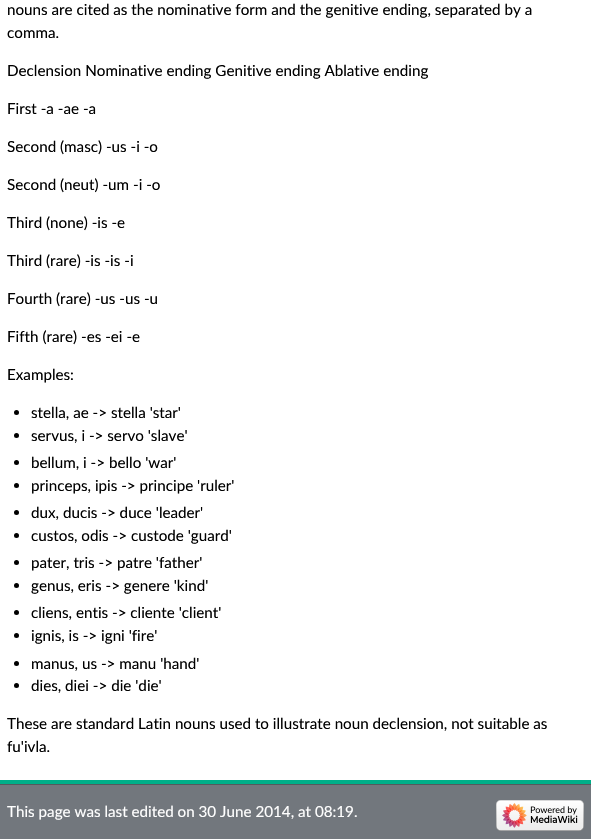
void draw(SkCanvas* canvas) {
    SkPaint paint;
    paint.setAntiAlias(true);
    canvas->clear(0xFF72777D);
    paint.setColor(0xFF00AF89);
    canvas->drawRect(SkRect::MakeXYWH(0, 780, 591, 4), paint);
    paint.setColor(0xFFFFFFFF);
    canvas->drawRect(SkRect::MakeXYWH(0, 0, 591, 780), paint);
    SkFont font1(fontMgr->matchFamilyStyle("Lato", SkFontStyle::Normal()), 15.2f);
    font1.setSubpixel(true);
    paint.setColor(0xFF000000);
    canvas->drawString("nouns are cited as the nominative form and the genitive ending, separated by a", 7, 15, font1, paint);
    canvas->drawString("comma.", 7, 38, font1, paint);
    canvas->drawString("Declension Nominative ending Genitive ending Ablative ending", 7, 76, font1, paint);
    canvas->drawString("First -a -ae -a", 7, 114, font1, paint);
    canvas->drawString("Second (masc) -us -i -o", 7, 152, font1, paint);
    canvas->drawString("Second (neut) -um -i -o", 7, 190, font1, paint);
    canvas->drawString("Third (none) -is -e", 7, 228, font1, paint);
    canvas->drawString("Third (rare) -is -is -i", 7, 266, font1, paint);
    canvas->drawString("Fourth (rare) -us -us -u", 7, 304, font1, paint);
    canvas->drawString("Fifth (rare) -es -ei -e", 7, 342, font1, paint);
    canvas->drawString("Examples:", 7, 380, font1, paint);
    canvas->drawCircle(16.5f, 412.5f, 2.5f, paint);
    canvas->drawString("stella, ae -> stella 'star'", 31, 418, font1, paint);
    canvas->drawCircle(16.5f, 435.5f, 2.5f, paint);
    canvas->drawString("servus, i -> servo 'slave'", 31, 441, font1, paint);
    canvas->drawCircle(16.5f, 462.5f, 2.5f, paint);
    canvas->drawString("bellum, i -> bello 'war'", 31, 468, font1, paint);
    canvas->drawCircle(16.5f, 485.5f, 2.5f, paint);
    canvas->drawString("princeps, ipis -> principe 'ruler'", 31, 491, font1, paint);
    canvas->drawCircle(16.5f, 512.5f, 2.5f, paint);
    canvas->drawString("dux, ducis -> duce 'leader'", 31, 518, font1, paint);
    canvas->drawCircle(16.5f, 535.5f, 2.5f, paint);
    canvas->drawString("custos, odis -> custode 'guard'", 31, 541, font1, paint);
    canvas->drawCircle(16.5f, 562.5f, 2.5f, paint);
    canvas->drawString("pater, tris -> patre 'father'", 31, 568, font1, paint);
    canvas->drawCircle(16.5f, 585.5f, 2.5f, paint);
    canvas->drawString("genus, eris -> genere 'kind'", 31, 591, font1, paint);
    canvas->drawCircle(16.5f, 612.5f, 2.5f, paint);
    canvas->drawString("cliens, entis -> cliente 'client'", 31, 618, font1, paint);
    canvas->drawCircle(16.5f, 635.5f, 2.5f, paint);
    canvas->drawString("ignis, is -> igni 'fire'", 31, 641, font1, paint);
    canvas->drawCircle(16.5f, 663.5f, 2.5f, paint);
    canvas->drawString("manus, us -> manu 'hand'", 31, 669, font1, paint);
    canvas->drawCircle(16.5f, 685.5f, 2.5f, paint);
    canvas->drawString("dies, diei -> die 'die'", 31, 691, font1, paint);
    canvas->drawString("These are standard Latin nouns used to illustrate noun declension, not suitable as", 7, 729, font1, paint);
    canvas->drawString("fu'ivla.", 7, 752, font1, paint);
    paint.setColor(0xFF54595D);
    canvas->drawRect(SkRect::MakeXYWH(0, 784, 591, 1), paint);
    paint.setColor(0xFFFFFFFF);
    canvas->drawString("This page was last edited on 30 June 2014, at 08:19.", 7, 817, font1, paint);
    canvas->drawImageRect(SkImages::DeferredFromEncodedData(SkData::MakeFromFileName("img1.png")), SkRect::MakeXYWH(496, 800, 88, 31), SkSamplingOptions());
}
